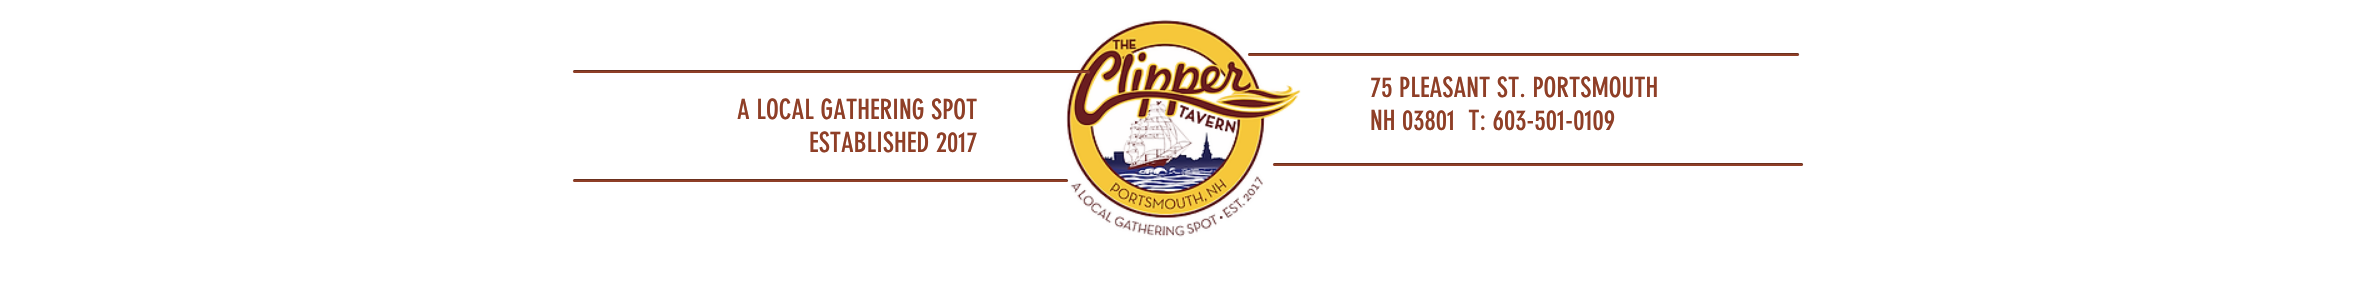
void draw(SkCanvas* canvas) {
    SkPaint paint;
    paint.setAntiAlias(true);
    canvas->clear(0xFFFFFFFF);
    canvas->drawImageRect(SkImages::DeferredFromEncodedData(SkData::MakeFromFileName("img1.png")), SkRect::MakeXYWH(1066, 19, 235, 218), SkSamplingOptions());
    paint.setColor(0xFF8F3F27);
    canvas->drawRoundRect(SkRect::MakeXYWH(1248, 53, 551, 3), 1.5f, 1.5f, paint);
    paint.setColor(0x40000000);
    canvas->drawPath(SkPathBuilder().moveTo(1249, 54).lineTo(1798, 54).cubicTo(1799, 54, 1799, 55, 1798, 56).cubicTo(1800, 55, 1799, 53, 1798, 53).lineTo(1249, 53).lineTo(1248, 54).close().detach(), paint);
    paint.setColor(0x1AFFFFFF);
    canvas->drawPath(SkPathBuilder().moveTo(573, 72).lineTo(573, 73).lineTo(574, 74).lineTo(1088, 74).cubicTo(1090, 74, 1090, 73, 1090, 72).lineTo(1089, 72).close().detach(), paint);
    paint.setColor(0xFF8F3F27);
    canvas->drawRoundRect(SkRect::MakeXYWH(573, 70, 517, 3), 1.5f, 1.5f, paint);
    paint.setColor(0x40000000);
    canvas->drawPath(SkPathBuilder().moveTo(574, 71).lineTo(1089, 71).lineTo(1090, 72).cubicTo(1090, 71, 1090, 70, 1088, 70).lineTo(574, 70).cubicTo(574, 70, 573, 71, 573, 71).close().detach(), paint);
    SkFont font1(fontMgr->matchFamilyStyle("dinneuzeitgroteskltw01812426", SkFontStyle::Normal()), 27.5f);
    font1.setSubpixel(true);
    paint.setColor(0xFF8F3F27);
    canvas->drawString("A LOCAL GATHERING SPOT", 737, 119, font1, paint);
    canvas->drawString("ESTABLISHED 2017", 809, 152, font1, paint);
    canvas->drawString("75 PLEASANT ST. PORTSMOUTH", 1370, 97, font1, paint);
    canvas->drawString("NH 03801  T: 603-501-0109", 1370, 130, font1, paint);
    canvas->drawRoundRect(SkRect::MakeXYWH(1273, 163, 530, 3), 1.5f, 1.5f, paint);
    paint.setColor(0x40000000);
    canvas->drawPath(SkPathBuilder().moveTo(1274, 164).lineTo(1802, 164).cubicTo(1803, 165, 1802, 166, 1801, 166).cubicTo(1803, 166, 1804, 163, 1802, 163).lineTo(1274, 163).lineTo(1273, 164).close().detach(), paint);
    paint.setColor(0xFF8F3F27);
    canvas->drawRoundRect(SkRect::MakeXYWH(573, 179, 495, 3), 1.5f, 1.5f, paint);
    paint.setColor(0x40000000);
    canvas->drawPath(SkPathBuilder().moveTo(574, 180).lineTo(1066, 180).cubicTo(1067, 180, 1068, 181, 1067, 182).cubicTo(1069, 181, 1068, 179, 1066, 179).lineTo(574, 179).lineTo(573, 180).close().detach(), paint);
}
